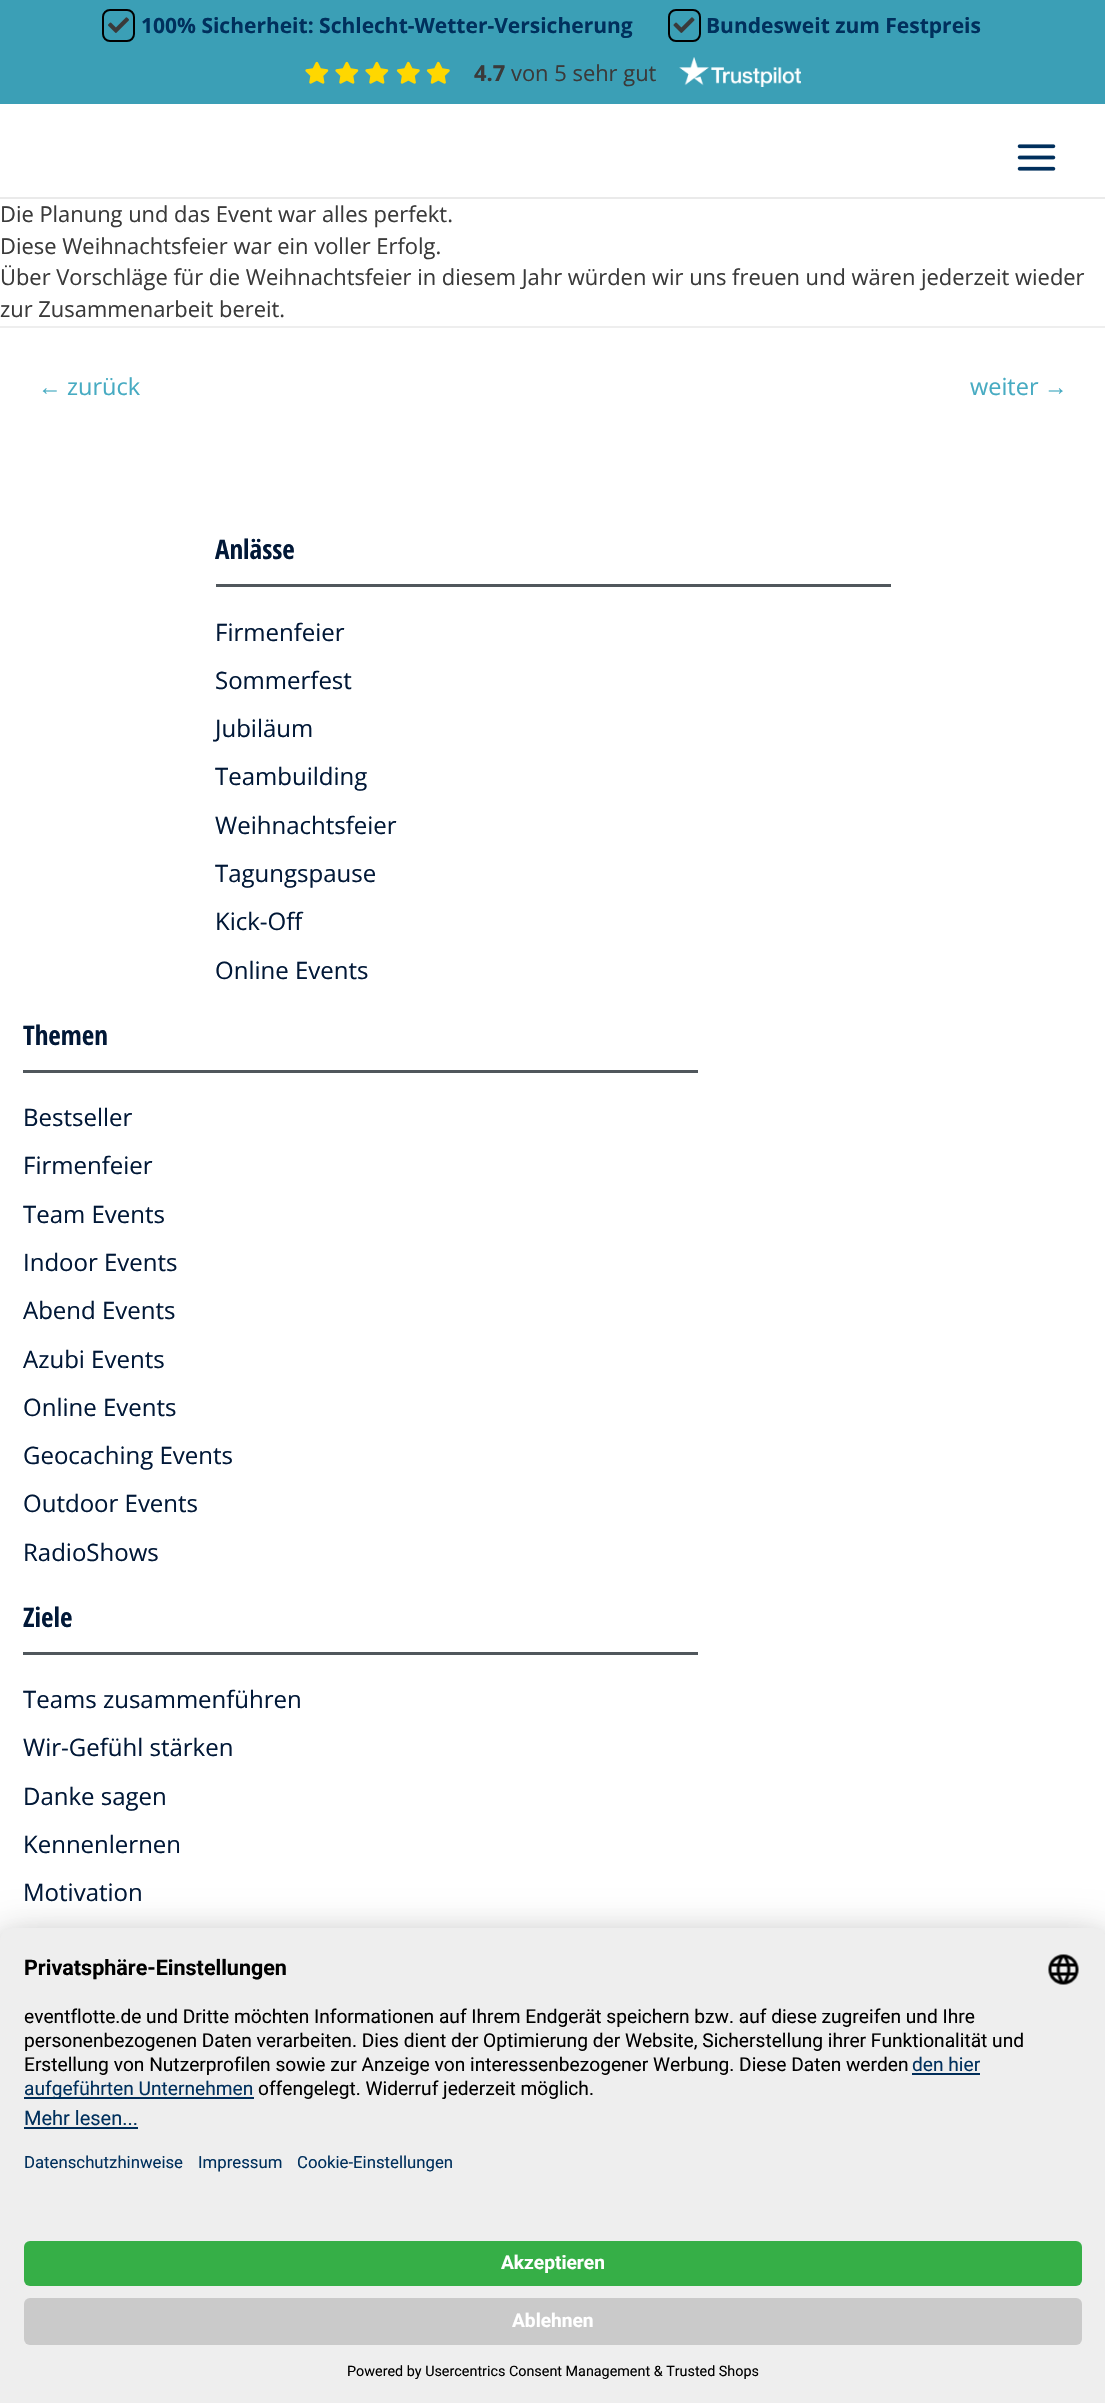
void draw(SkCanvas* canvas) {
    SkPaint paint;
    paint.setAntiAlias(true);
    canvas->clear(0xFFFFFFFF);
    paint.setColor(0xFF3B9FB6);
    canvas->drawRect(SkRect::MakeXYWH(0, 0, 1105, 104), paint);
    paint.setStyle(SkPaint::kStroke_Style);
    paint.setStrokeWidth(2);
    paint.setColor(0xFF000000);
    canvas->drawRoundRect(SkRect::MakeXYWH(103, 10, 31, 31), 7, 7, paint);
    canvas->drawImageRect(SkImages::DeferredFromEncodedData(SkData::MakeFromFileName("img1.png")), SkRect::MakeXYWH(108, 17, 21, 16), SkSamplingOptions());
    SkFont font1(fontMgr->matchFamilyStyle("Open Sans", SkFontStyle::Bold()), 21);
    font1.setSubpixel(true);
    paint.setStyle(SkPaint::kFill_Style);
    paint.setColor(0xFF00305D);
    canvas->drawString("100% Sicherheit: Schlecht-Wetter-Versicherung", 141, 33, font1, paint);
    paint.setStyle(SkPaint::kStroke_Style);
    paint.setColor(0xFF000000);
    canvas->drawRoundRect(SkRect::MakeXYWH(669, 10, 31, 31), 7, 7, paint);
    canvas->drawImageRect(SkImages::DeferredFromEncodedData(SkData::MakeFromFileName("img2.png")), SkRect::MakeXYWH(673, 17, 22, 16), SkSamplingOptions());
    paint.setStyle(SkPaint::kFill_Style);
    paint.setColor(0xFF00305D);
    canvas->drawString("Bundesweit zum Festpreis", 706, 33, font1, paint);
    canvas->drawImageRect(SkImages::DeferredFromEncodedData(SkData::MakeFromFileName("img3.png")), SkRect::MakeXYWH(305, 61, 24, 23), SkSamplingOptions());
    canvas->drawImageRect(SkImages::DeferredFromEncodedData(SkData::MakeFromFileName("img3.png")), SkRect::MakeXYWH(335, 61, 24, 23), SkSamplingOptions());
    canvas->drawImageRect(SkImages::DeferredFromEncodedData(SkData::MakeFromFileName("img3.png")), SkRect::MakeXYWH(365, 61, 24, 23), SkSamplingOptions());
    canvas->drawImageRect(SkImages::DeferredFromEncodedData(SkData::MakeFromFileName("img4.png")), SkRect::MakeXYWH(396, 61, 24, 23), SkSamplingOptions());
    canvas->drawImageRect(SkImages::DeferredFromEncodedData(SkData::MakeFromFileName("img4.png")), SkRect::MakeXYWH(426, 61, 24, 23), SkSamplingOptions());
    SkFont font2(fontMgr->matchFamilyStyle("Open Sans", SkFontStyle::Bold()), 21.9f);
    font2.setSubpixel(true);
    paint.setColor(0xFF3A3A3A);
    canvas->drawString("4.7", 474, 81, font2, paint);
    SkFont font3(fontMgr->matchFamilyStyle("Open Sans", SkFontStyle::Normal()), 21.9f);
    font3.setSubpixel(true);
    canvas->drawString("von 5 sehr gut", 511, 81, font3, paint);
    canvas->drawImageRect(SkImages::DeferredFromEncodedData(SkData::MakeFromFileName("img5.png")), SkRect::MakeXYWH(679, 57, 122, 30), SkSamplingOptions());
    paint.setColor(0xFFEAEAEA);
    canvas->drawRect(SkRect::MakeXYWH(0, 197, 1105, 2), paint);
    canvas->drawImageRect(SkImages::DeferredFromEncodedData(SkData::MakeFromFileName("img6.png")), SkRect::MakeXYWH(1017, 144, 39, 27), SkSamplingOptions());
    paint.setColor(0xFF3A3A3A);
    canvas->drawString("Die Planung und das Event war alles perfekt.", 0, 222, font3, paint);
    canvas->drawString("Diese Weihnachtsfeier war ein voller Erfolg.", 0, 254, font3, paint);
    canvas->drawString("Über Vorschläge für die Weihnachtsfeier in diesem Jahr würden wir uns freuen und wären jederzeit wieder", 0, 285, font3, paint);
    canvas->drawString("zur Zusammenarbeit bereit.", 0, 317, font3, paint);
    paint.setColor(0xFFEEEEEE);
    canvas->drawRect(SkRect::MakeXYWH(0, 326, 1105, 2), paint);
    SkFont font4(fontMgr->matchFamilyStyle("Liberation Sans", SkFontStyle::Normal()), 23.5f);
    font4.setSubpixel(true);
    paint.setColor(0xFF47ABC2);
    canvas->drawString("←", 38, 395, font4, paint);
    SkFont font5(fontMgr->matchFamilyStyle("Open Sans", SkFontStyle::Normal()), 23.5f);
    font5.setSubpixel(true);
    canvas->drawString("zurück", 67, 395, font5, paint);
    canvas->drawString("weiter", 970, 395, font5, paint);
    canvas->drawString("→", 1044, 395, font4, paint);
    SkFont font6(fontMgr->matchFamilyStyle("Open Sans Condensed", SkFontStyle::Bold()), 27);
    font6.setSubpixel(true);
    paint.setColor(0xFF011837);
    canvas->drawString("Anlässe", 215, 559, font6, paint);
    paint.setColor(0xFF50575C);
    canvas->drawRect(SkRect::MakeXYWH(216, 584, 675, 3), paint);
    SkFont font7(fontMgr->matchFamilyStyle("Open Sans", SkFontStyle::Normal()), 24);
    font7.setSubpixel(true);
    paint.setColor(0xFF011837);
    canvas->drawString("Firmenfeier", 215, 641, font7, paint);
    canvas->drawString("Sommerfest", 215, 689, font7, paint);
    canvas->drawString("Jubiläum", 215, 737, font7, paint);
    canvas->drawString("Teambuilding", 215, 785, font7, paint);
    canvas->drawString("Weihnachtsfeier", 215, 834, font7, paint);
    canvas->drawString("Tagungspause", 215, 882, font7, paint);
    canvas->drawString("Kick-Off", 215, 930, font7, paint);
    canvas->drawString("Online Events", 215, 979, font7, paint);
    canvas->drawString("Themen", 23, 1045, font6, paint);
    paint.setColor(0xFF50575C);
    canvas->drawRect(SkRect::MakeXYWH(23, 1070, 675, 3), paint);
    paint.setColor(0xFF011837);
    canvas->drawString("Bestseller", 23, 1126, font7, paint);
    canvas->drawString("Firmenfeier", 23, 1174, font7, paint);
    canvas->drawString("Team Events", 23, 1223, font7, paint);
    canvas->drawString("Indoor Events", 23, 1271, font7, paint);
    canvas->drawString("Abend Events", 23, 1319, font7, paint);
    canvas->drawString("Azubi Events", 23, 1368, font7, paint);
    canvas->drawString("Online Events", 23, 1416, font7, paint);
    canvas->drawString("Geocaching Events", 23, 1464, font7, paint);
    canvas->drawString("Outdoor Events", 23, 1512, font7, paint);
    canvas->drawString("RadioShows", 23, 1561, font7, paint);
    canvas->drawString("Ziele", 23, 1627, font6, paint);
    paint.setColor(0xFF50575C);
    canvas->drawRect(SkRect::MakeXYWH(23, 1652, 675, 3), paint);
    paint.setColor(0xFF011837);
    canvas->drawString("Teams zusammenführen", 23, 1708, font7, paint);
    canvas->drawString("Wir-Gefühl stärken", 23, 1756, font7, paint);
    canvas->drawString("Danke sagen", 23, 1805, font7, paint);
    canvas->drawString("Kennenlernen", 23, 1853, font7, paint);
    canvas->drawString("Motivation", 23, 1901, font7, paint);
    paint.setColor(0x4D000000);
    paint.setMaskFilter(SkMaskFilter::MakeBlur(kNormal_SkBlurStyle, 21));
    canvas->drawRoundRect(SkRect::MakeXYWH(0, 1958, 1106, 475), 12, 12, paint);
    paint.setMaskFilter(nullptr);
    paint.setColor(0x38000000);
    paint.setMaskFilter(SkMaskFilter::MakeBlur(kNormal_SkBlurStyle, 19.5f));
    canvas->drawRoundRect(SkRect::MakeXYWH(0, 1935, 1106, 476), 12, 12, paint);
    paint.setMaskFilter(nullptr);
    paint.setColor(0xFFEEEEEE);
    canvas->drawPath(SkPathBuilder().moveTo(12, 1928).lineTo(1094, 1928).cubicTo(1100.5f, 1928, 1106, 1933.5f, 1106, 1940).lineTo(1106, 2403).lineTo(0, 2403).lineTo(0, 1940).cubicTo(0, 1933.5f, 5.5f, 1928, 12, 1928).close().detach(), paint);
    SkFont font8(fontMgr->matchFamilyStyle("Roboto", SkFontStyle::Bold()), 21.5f);
    font8.setSubpixel(true);
    paint.setColor(0xFF000000);
    canvas->drawString("Privatsphäre-Einstellungen", 24, 1975, font8, paint);
    canvas->drawImageRect(SkImages::DeferredFromEncodedData(SkData::MakeFromFileName("img7.png")), SkRect::MakeXYWH(1048, 1954, 31, 31), SkSamplingOptions());
    SkFont font9(fontMgr->matchFamilyStyle("Roboto", SkFontStyle::Normal()), 19.15f);
    font9.setSubpixel(true);
    canvas->drawString("eventflotte.de und Dritte möchten Informationen auf Ihrem Endgerät speichern bzw. auf diese zugreifen und Ihre", 24, 2023, font9, paint);
    canvas->drawString("personenbezogenen Daten verarbeiten. Dies dient der Optimierung der Website, Sicherstellung ihrer Funktionalität und", 24, 2047, font9, paint);
    canvas->drawString("Erstellung von Nutzerprofilen sowie zur Anzeige von interessenbezogener Werbung. Diese Daten werden", 24, 2071, font9, paint);
    paint.setColor(0xFF00305D);
    canvas->drawString("den hier", 912, 2071, font9, paint);
    paint.setColor(0xFF002D59);
    canvas->drawRect(SkRect::MakeXYWH(912, 2073, 68, 2), paint);
    canvas->drawRect(SkRect::MakeXYWH(24, 2097, 230, 2), paint);
    paint.setColor(0xFF00305D);
    canvas->drawString("aufgeführten Unternehmen", 24, 2095, font9, paint);
    paint.setColor(0xFF000000);
    canvas->drawString("offengelegt. Widerruf jederzeit möglich.", 258, 2095, font9, paint);
    SkFont font10(fontMgr->matchFamilyStyle("Roboto", SkFontStyle::Normal()), 20);
    font10.setSubpixel(true);
    paint.setColor(0xFF00305D);
    canvas->drawString("Mehr lesen...", 24, 2125, font10, paint);
    paint.setColor(0xFF002D59);
    canvas->drawRect(SkRect::MakeXYWH(24, 2127, 114, 2), paint);
    SkFont font11(fontMgr->matchFamilyStyle("Roboto", SkFontStyle::Normal()), 16.75f);
    font11.setSubpixel(true);
    paint.setColor(0xFF00305D);
    canvas->drawString("Datenschutzhinweise", 24, 2168, font11, paint);
    canvas->drawString("Impressum", 198, 2168, font11, paint);
    canvas->drawString("Cookie-Einstellungen", 297, 2168, font11, paint);
    paint.setColor(0xFF36AF47);
    canvas->drawRoundRect(SkRect::MakeXYWH(24, 2241, 1058, 45), 6, 6, paint);
    SkFont font12(fontMgr->matchFamilyStyle("Roboto", SkFontStyle::Bold()), 19.15f);
    font12.setSubpixel(true);
    paint.setColor(0xFFFFFFFF);
    canvas->drawString("Akzeptieren", 501, 2269, font12, paint);
    paint.setColor(0xFFCACACA);
    canvas->drawRoundRect(SkRect::MakeXYWH(24, 2298, 1058, 47), 6, 6, paint);
    paint.setColor(0xFFFFFFFF);
    canvas->drawString("Ablehnen", 512, 2327, font12, paint);
    SkFont font13(fontMgr->matchFamilyStyle("Roboto", SkFontStyle::Normal()), 14.35f);
    font13.setSubpixel(true);
    paint.setColor(0xFF000000);
    canvas->drawString("Powered by Usercentrics Consent Management & Trusted Shops", 347, 2376, font13, paint);
}
